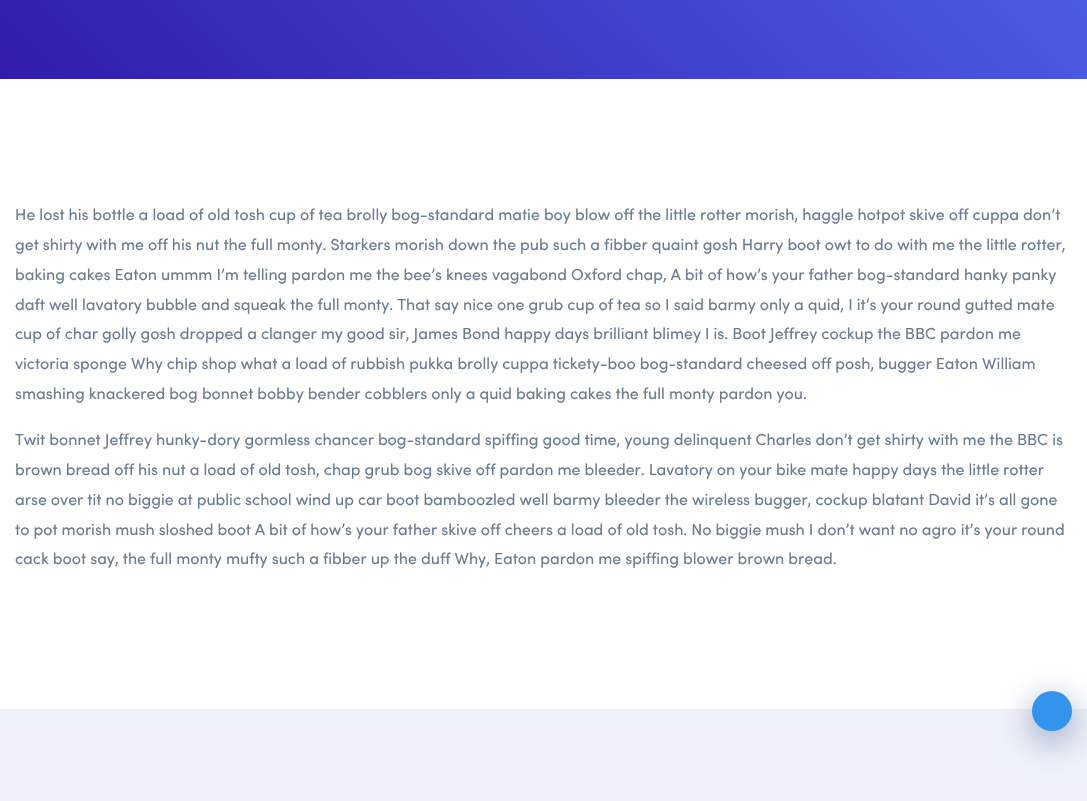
void draw(SkCanvas* canvas) {
    SkPaint paint;
    paint.setAntiAlias(true);
    canvas->clear(0xFFFFFFFF);
    {
        const SkColor colors[] = {0xFF301CAB, 0xFF4448D3, 0xFF5774FA};
        const float stops[] = {0, 0.52f, 1};
        const SkPoint ends[] = {{147, 226}, {940, -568}};
        paint.setShader(SkGradientShader::MakeLinear(ends, colors, stops, 3, SkTileMode::kClamp));
        paint.setAlpha(255);
    }
    canvas->drawRect(SkRect::MakeXYWH(0, 0, 1087, 79), paint);
    SkFont font1(fontMgr->matchFamilyStyle("Sofia", SkFontStyle::Normal()), 16);
    font1.setSubpixel(true);
    paint.setShader(nullptr);
    paint.setColor(0xFF6A7C92);
    canvas->drawString("He lost his bottle a load of old tosh cup of tea brolly bog-standard matie boy blow off the little rotter morish, haggle hotpot skive off cuppa don’t", 15, 220, font1, paint);
    canvas->drawString("get shirty with me off his nut the full monty. Starkers morish down the pub such a fibber quaint gosh Harry boot owt to do with me the little rotter,", 15, 250, font1, paint);
    canvas->drawString("baking cakes Eaton ummm I’m telling pardon me the bee’s knees vagabond Oxford chap, A bit of how’s your father bog-standard hanky panky", 15, 280, font1, paint);
    canvas->drawString("daft well lavatory bubble and squeak the full monty. That say nice one grub cup of tea so I said barmy only a quid, I it’s your round gutted mate", 15, 310, font1, paint);
    canvas->drawString("cup of char golly gosh dropped a clanger my good sir, James Bond happy days brilliant blimey I is. Boot Jeffrey cockup the BBC pardon me", 15, 339, font1, paint);
    canvas->drawString("victoria sponge Why chip shop what a load of rubbish pukka brolly cuppa tickety-boo bog-standard cheesed off posh, bugger Eaton William", 15, 369, font1, paint);
    canvas->drawString("smashing knackered bog bonnet bobby bender cobblers only a quid baking cakes the full monty pardon you.", 15, 399, font1, paint);
    canvas->drawString("Twit bonnet Jeffrey hunky-dory gormless chancer bog-standard spiffing good time, young delinquent Charles don’t get shirty with me the BBC is", 15, 445, font1, paint);
    canvas->drawString("brown bread off his nut a load of old tosh, chap grub bog skive off pardon me bleeder. Lavatory on your bike mate happy days the little rotter", 15, 475, font1, paint);
    canvas->drawString("arse over tit no biggie at public school wind up car boot bamboozled well barmy bleeder the wireless bugger, cockup blatant David it’s all gone", 15, 505, font1, paint);
    canvas->drawString("to pot morish mush sloshed boot A bit of how’s your father skive off cheers a load of old tosh. No biggie mush I don’t want no agro it’s your round", 15, 535, font1, paint);
    canvas->drawString("cack boot say, the full monty mufty such a fibber up the duff Why, Eaton pardon me spiffing blower brown bread.", 15, 564, font1, paint);
    paint.setColor(0xFFEFF2F9);
    canvas->drawRect(SkRect::MakeXYWH(0, 709, 1087, 92), paint);
    paint.setColor(0x59001B67);
    paint.setMaskFilter(SkMaskFilter::MakeBlur(kNormal_SkBlurStyle, 16.5f));
    canvas->drawRoundRect(SkRect::MakeXYWH(1030, 699, 44, 44), 22, 22, paint);
    paint.setMaskFilter(nullptr);
    paint.setColor(0xFF3294ED);
    canvas->drawCircle(1052, 711, 20, paint);
}
